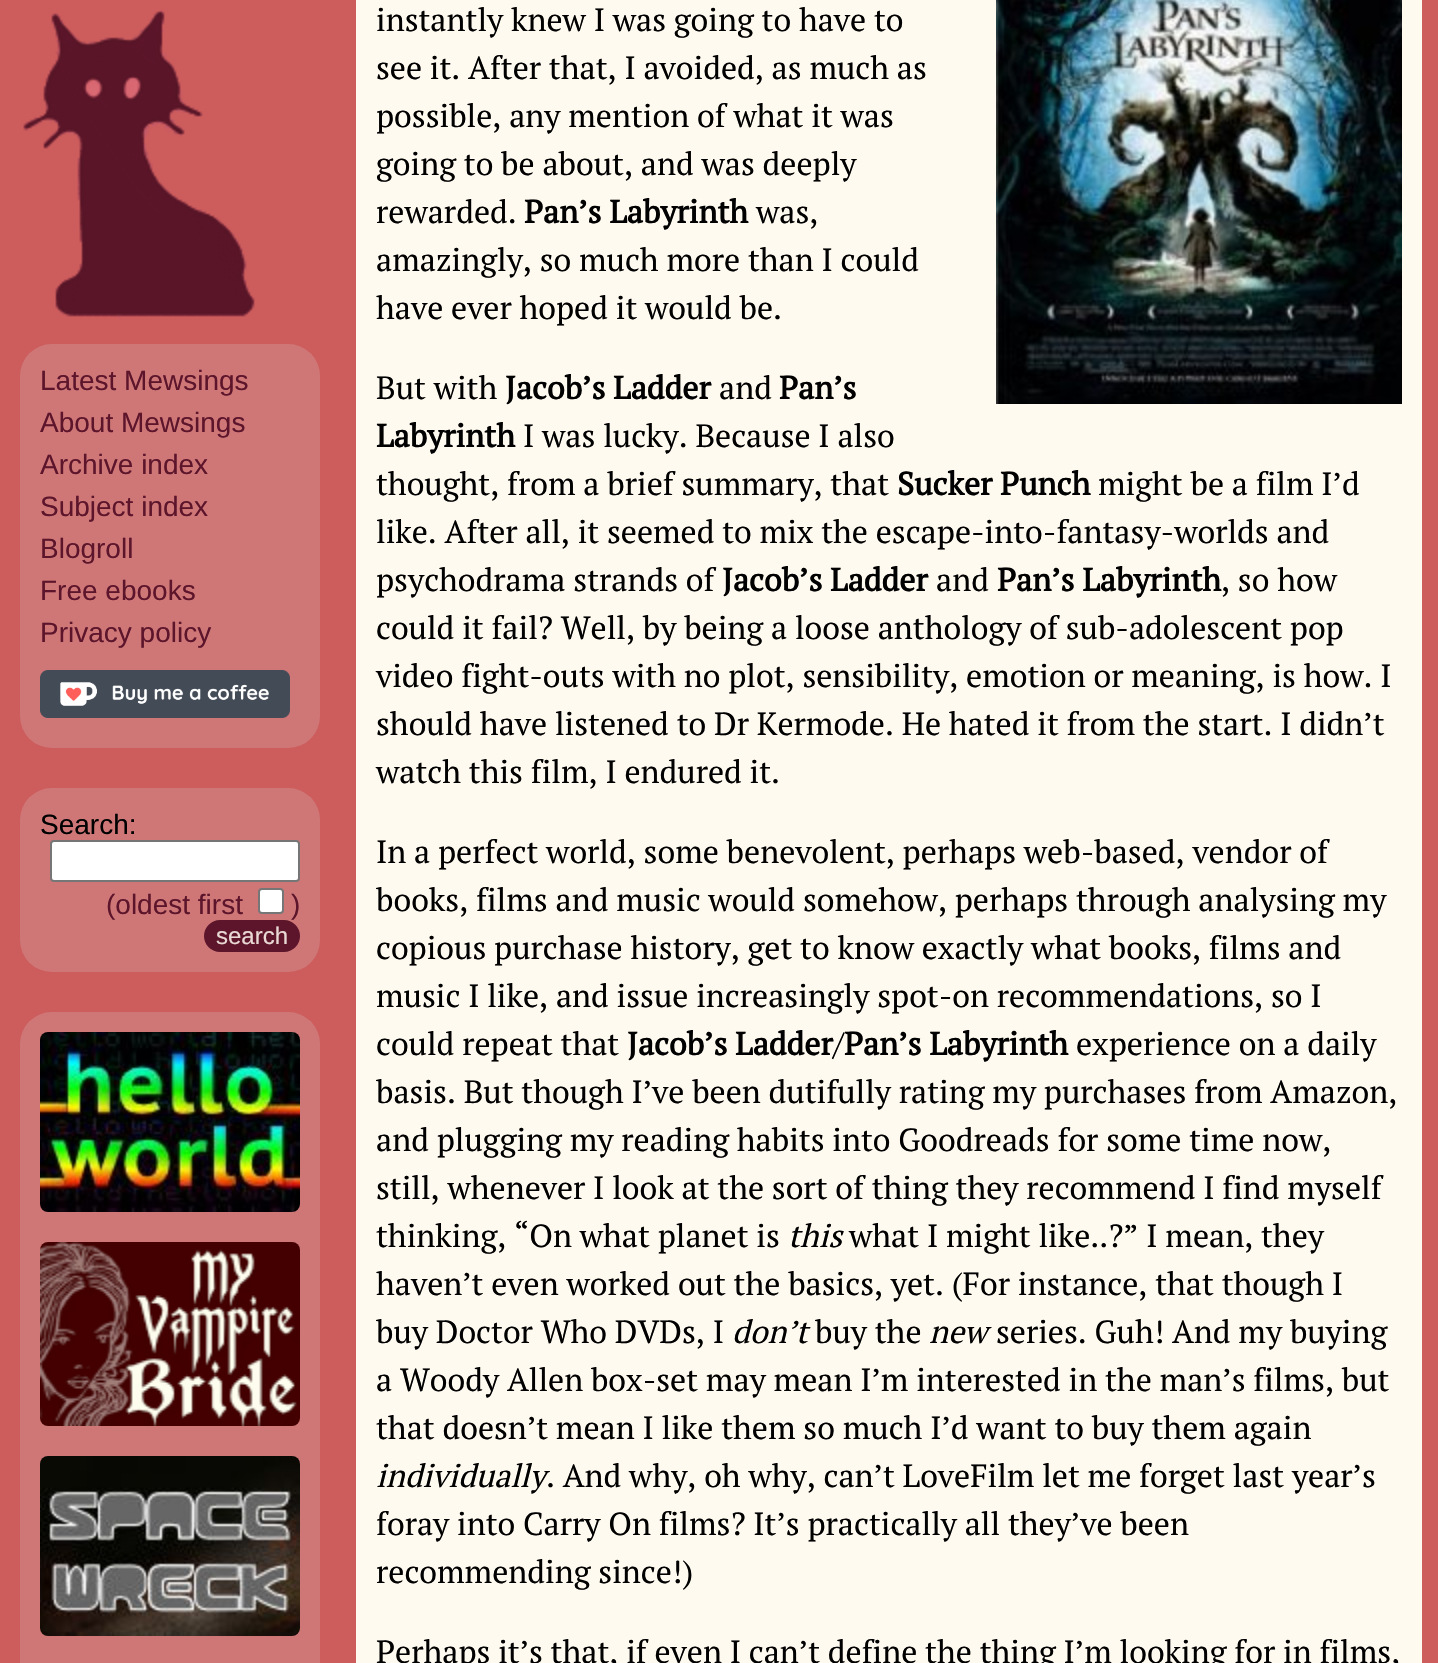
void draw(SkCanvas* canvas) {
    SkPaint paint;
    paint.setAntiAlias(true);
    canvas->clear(0xFFCD5C5C);
    canvas->drawImageRect(SkImages::DeferredFromEncodedData(SkData::MakeFromFileName("img1.png")), SkRect::MakeXYWH(23, 10, 232, 308), SkSamplingOptions());
    paint.setColor(0xFFCF7777);
    canvas->drawRoundRect(SkRect::MakeXYWH(20, 344, 300, 404), 32, 32, paint);
    SkFont font1(fontMgr->matchFamilyStyle("Liberation Sans", SkFontStyle::Normal()), 28);
    font1.setSubpixel(true);
    paint.setColor(0xFF5D152B);
    canvas->drawString("Latest Mewsings", 40, 390, font1, paint);
    canvas->drawString("About Mewsings", 40, 432, font1, paint);
    canvas->drawString("Archive index", 40, 474, font1, paint);
    canvas->drawString("Subject index", 40, 516, font1, paint);
    canvas->drawString("Blogroll", 40, 558, font1, paint);
    canvas->drawString("Free ebooks", 40, 600, font1, paint);
    canvas->drawString("Privacy policy", 40, 642, font1, paint);
    canvas->drawImageRect(SkImages::DeferredFromEncodedData(SkData::MakeFromFileName("img2.png")), SkRect::MakeXYWH(40, 670, 250, 48), SkSamplingOptions());
    paint.setColor(0xFFCF7777);
    canvas->drawRoundRect(SkRect::MakeXYWH(20, 788, 300, 184), 32, 32, paint);
    paint.setColor(0xFF000000);
    canvas->drawString("Search:", 40, 834, font1, paint);
    paint.setColor(0xFFFFFFFF);
    canvas->drawRoundRect(SkRect::MakeXYWH(51, 841, 248, 40), 3, 3, paint);
    paint.setStyle(SkPaint::kStroke_Style);
    paint.setStrokeWidth(2);
    paint.setColor(0xFF767676);
    canvas->drawRoundRect(SkRect::MakeXYWH(51, 841, 248, 40), 3, 3, paint);
    paint.setStyle(SkPaint::kFill_Style);
    paint.setColor(0xFF5D152B);
    canvas->drawString("(oldest first", 106, 914, font1, paint);
    paint.setColor(0xFFFFFFFF);
    canvas->drawRoundRect(SkRect::MakeXYWH(259, 889, 24, 24), 3, 3, paint);
    paint.setStyle(SkPaint::kStroke_Style);
    paint.setColor(0xFF767676);
    canvas->drawRoundRect(SkRect::MakeXYWH(259, 889, 24, 24), 3, 3, paint);
    paint.setStyle(SkPaint::kFill_Style);
    paint.setColor(0xFF5D152B);
    canvas->drawString(")", 291, 914, font1, paint);
    canvas->drawRoundRect(SkRect::MakeXYWH(204, 920, 96, 32), 16, 16, paint);
    SkFont font2(fontMgr->matchFamilyStyle("Liberation Sans", SkFontStyle::Normal()), 24);
    font2.setSubpixel(true);
    paint.setColor(0xFFE9D8D3);
    canvas->drawString("search", 216, 944, font2, paint);
    paint.setColor(0xFFCF7777);
    canvas->drawRoundRect(SkRect::MakeXYWH(20, 1012, 300, 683), 32, 32, paint);
    canvas->drawImageRect(SkImages::DeferredFromEncodedData(SkData::MakeFromFileName("img3.png")), SkRect::MakeXYWH(40, 1032, 260, 180), SkSamplingOptions());
    canvas->drawImageRect(SkImages::DeferredFromEncodedData(SkData::MakeFromFileName("img4.png")), SkRect::MakeXYWH(40, 1242, 260, 184), SkSamplingOptions());
    canvas->drawImageRect(SkImages::DeferredFromEncodedData(SkData::MakeFromFileName("img5.png")), SkRect::MakeXYWH(40, 1456, 260, 180), SkSamplingOptions());
    paint.setColor(0xFFFFFAF0);
    canvas->drawRect(SkRect::MakeXYWH(356, 0, 1066, 1663), paint);
    SkFont font3(fontMgr->matchFamilyStyle("PT Serif", SkFontStyle::Normal()), 32);
    font3.setSubpixel(true);
    paint.setColor(0xFF000000);
    canvas->drawString("instantly knew I was going to have to", 376, 31, font3, paint);
    canvas->drawImageRect(SkImages::DeferredFromEncodedData(SkData::MakeFromFileName("img6.png")), SkRect::MakeXYWH(996, 0, 406, 404), SkSamplingOptions());
    canvas->drawString("see it. After that, I avoided, as much as", 376, 79, font3, paint);
    canvas->drawString("possible, any mention of what it was", 376, 127, font3, paint);
    canvas->drawString("going to be about, and was deeply", 376, 175, font3, paint);
    canvas->drawString("rewarded.", 376, 223, font3, paint);
    SkFont font4(fontMgr->matchFamilyStyle("PT Serif", SkFontStyle::Bold()), 32);
    font4.setSubpixel(true);
    canvas->drawString("Pan’s Labyrinth", 524, 223, font4, paint);
    canvas->drawString("was,", 756, 223, font3, paint);
    canvas->drawString("amazingly, so much more than I could", 376, 271, font3, paint);
    canvas->drawString("have ever hoped it would be.", 376, 319, font3, paint);
    canvas->drawString("But with", 376, 399, font3, paint);
    canvas->drawString("Jacob’s Ladder", 505, 399, font4, paint);
    canvas->drawString("and", 719, 399, font3, paint);
    canvas->drawString("Pan’s", 779, 399, font4, paint);
    canvas->drawString("Labyrinth", 376, 447, font4, paint);
    canvas->drawString("I was lucky. Because I also", 523, 447, font3, paint);
    canvas->drawString("thought, from a brief summary, that", 376, 495, font3, paint);
    canvas->drawString("Sucker Punch", 897, 495, font4, paint);
    canvas->drawString("might be a film I’d", 1098, 495, font3, paint);
    canvas->drawString("like. After all, it seemed to mix the escape-into-fantasy-worlds and", 376, 543, font3, paint);
    canvas->drawString("psychodrama strands of", 376, 591, font3, paint);
    canvas->drawString("Jacob’s Ladder", 722, 591, font4, paint);
    canvas->drawString("and", 936, 591, font3, paint);
    canvas->drawString("Pan’s Labyrinth", 997, 591, font4, paint);
    canvas->drawString(", so how", 1221, 591, font3, paint);
    canvas->drawString("could it fail? Well, by being a loose anthology of sub-adolescent pop", 376, 639, font3, paint);
    canvas->drawString("video fight-outs with no plot, sensibility, emotion or meaning, is how. I", 376, 687, font3, paint);
    canvas->drawString("should have listened to Dr Kermode. He hated it from the start. I didn’t", 376, 735, font3, paint);
    canvas->drawString("watch this film, I endured it.", 376, 783, font3, paint);
    canvas->drawString("In a perfect world, some benevolent, perhaps web-based, vendor of", 376, 863, font3, paint);
    canvas->drawString("books, films and music would somehow, perhaps through analysing my", 376, 911, font3, paint);
    canvas->drawString("copious purchase history, get to know exactly what books, films and", 376, 959, font3, paint);
    canvas->drawString("music I like, and issue increasingly spot-on recommendations, so I", 376, 1007, font3, paint);
    canvas->drawString("could repeat that", 376, 1055, font3, paint);
    canvas->drawString("Jacob’s Ladder", 627, 1055, font4, paint);
    canvas->drawString("/", 833, 1055, font3, paint);
    canvas->drawString("Pan’s Labyrinth", 844, 1055, font4, paint);
    canvas->drawString("experience on a daily", 1076, 1055, font3, paint);
    canvas->drawString("basis. But though I’ve been dutifully rating my purchases from Amazon,", 376, 1103, font3, paint);
    canvas->drawString("and plugging my reading habits into Goodreads for some time now,", 376, 1151, font3, paint);
    canvas->drawString("still, whenever I look at the sort of thing they recommend I find myself", 376, 1199, font3, paint);
    canvas->drawString("thinking, “On what planet is", 376, 1247, font3, paint);
    SkFont font5(fontMgr->matchFamilyStyle("PT Serif", SkFontStyle::Italic()), 32);
    font5.setSubpixel(true);
    canvas->drawString("this", 788, 1247, font5, paint);
    canvas->drawString("what I might like..?” I mean, they", 849, 1247, font3, paint);
    canvas->drawString("haven’t even worked out the basics, yet. (For instance, that though I", 376, 1295, font3, paint);
    canvas->drawString("buy Doctor Who DVDs, I", 376, 1343, font3, paint);
    canvas->drawString("don’t", 732, 1343, font5, paint);
    canvas->drawString("buy the", 815, 1343, font3, paint);
    canvas->drawString("new", 929, 1343, font5, paint);
    canvas->drawString("series. Guh! And my buying", 996, 1343, font3, paint);
    canvas->drawString("a Woody Allen box-set may mean I’m interested in the man’s films, but", 376, 1391, font3, paint);
    canvas->drawString("that doesn’t mean I like them so much I’d want to buy them again", 376, 1439, font3, paint);
    canvas->drawString("individually", 376, 1487, font5, paint);
    canvas->drawString(". And why, oh why, can’t LoveFilm let me forget last year’s", 546, 1487, font3, paint);
    canvas->drawString("foray into Carry On films? It’s practically all they’ve been", 376, 1535, font3, paint);
    canvas->drawString("recommending since!)", 376, 1583, font3, paint);
    canvas->drawString("Perhaps it’s that, if even I can’t define the thing I’m looking for in films,", 376, 1663, font3, paint);
}
